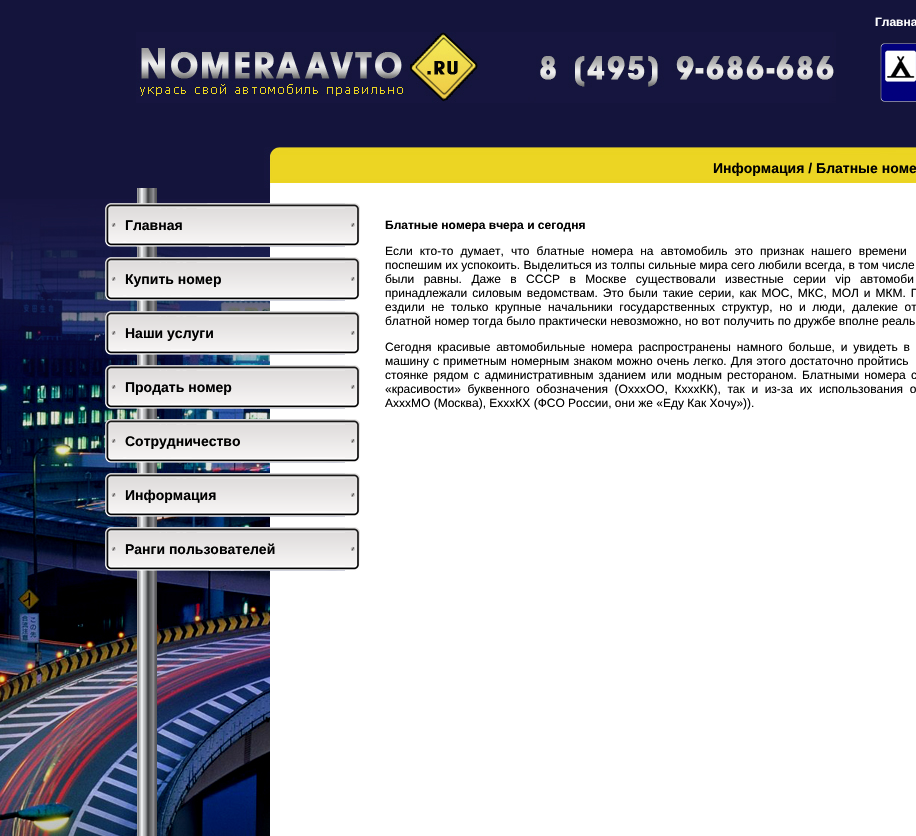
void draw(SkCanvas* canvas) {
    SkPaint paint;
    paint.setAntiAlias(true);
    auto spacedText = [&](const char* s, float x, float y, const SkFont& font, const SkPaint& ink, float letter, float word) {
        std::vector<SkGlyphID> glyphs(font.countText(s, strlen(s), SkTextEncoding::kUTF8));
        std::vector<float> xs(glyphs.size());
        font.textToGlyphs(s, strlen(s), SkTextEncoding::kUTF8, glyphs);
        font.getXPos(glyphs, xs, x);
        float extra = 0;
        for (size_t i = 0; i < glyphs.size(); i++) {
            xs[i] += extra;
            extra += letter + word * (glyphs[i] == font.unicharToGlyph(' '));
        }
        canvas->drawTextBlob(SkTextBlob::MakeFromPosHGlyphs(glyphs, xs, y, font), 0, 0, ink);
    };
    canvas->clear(0xFF14143C);
    canvas->drawImageRect(SkImages::DeferredFromEncodedData(SkData::MakeFromFileName("img1.png")), SkRect::MakeXYWH(136, 32, 700, 71), SkSamplingOptions());
    SkFont font1(fontMgr->matchFamilyStyle("Liberation Sans", SkFontStyle::Bold()), 12);
    font1.setSubpixel(true);
    paint.setColor(0xFFFFFFFF);
    canvas->drawString("Главна", 875, 26, font1, paint);
    canvas->drawImageRect(SkImages::DeferredFromEncodedData(SkData::MakeFromFileName("img2.png")), SkRect::MakeXYWH(880, 43, 36, 59), SkSamplingOptions());
    canvas->drawImageRect(SkImages::DeferredFromEncodedData(SkData::MakeFromFileName("img3.png")), SkRect::MakeXYWH(264, 147, 652, 41), SkSamplingOptions());
    SkFont font2(fontMgr->matchFamilyStyle("Liberation Sans", SkFontStyle::Bold()), 14);
    font2.setSubpixel(true);
    paint.setColor(0xFF000000);
    canvas->drawString("Информация / Блатные номе", 713, 173, font2, paint);
    canvas->drawImageRect(SkImages::DeferredFromEncodedData(SkData::MakeFromFileName("img4.png")), SkRect::MakeXYWH(0, 199, 270, 637), SkSamplingOptions());
    paint.setColor(0xFFFFFFFF);
    canvas->drawRect(SkRect::MakeXYWH(270, 188, 646, 648), paint);
    canvas->drawImageRect(SkImages::DeferredFromEncodedData(SkData::MakeFromFileName("img5.png")), SkRect::MakeXYWH(137, 188, 20, 648), SkSamplingOptions());
    canvas->drawImageRect(SkImages::DeferredFromEncodedData(SkData::MakeFromFileName("img6.png")), SkRect::MakeXYWH(105, 203, 255, 44), SkSamplingOptions());
    paint.setColor(0xFF000000);
    canvas->drawString("Главная", 125, 230, font2, paint);
    canvas->drawImageRect(SkImages::DeferredFromEncodedData(SkData::MakeFromFileName("img7.png")), SkRect::MakeXYWH(105, 257, 255, 44), SkSamplingOptions());
    canvas->drawString("Купить номер", 125, 284, font2, paint);
    canvas->drawImageRect(SkImages::DeferredFromEncodedData(SkData::MakeFromFileName("img8.png")), SkRect::MakeXYWH(105, 311, 255, 44), SkSamplingOptions());
    canvas->drawString("Наши услуги", 125, 338, font2, paint);
    canvas->drawImageRect(SkImages::DeferredFromEncodedData(SkData::MakeFromFileName("img9.png")), SkRect::MakeXYWH(105, 365, 255, 44), SkSamplingOptions());
    canvas->drawString("Продать номер", 125, 392, font2, paint);
    canvas->drawImageRect(SkImages::DeferredFromEncodedData(SkData::MakeFromFileName("img10.png")), SkRect::MakeXYWH(105, 419, 255, 44), SkSamplingOptions());
    canvas->drawString("Сотрудничество", 125, 446, font2, paint);
    canvas->drawImageRect(SkImages::DeferredFromEncodedData(SkData::MakeFromFileName("img11.png")), SkRect::MakeXYWH(105, 473, 255, 44), SkSamplingOptions());
    canvas->drawString("Информация", 125, 500, font2, paint);
    canvas->drawImageRect(SkImages::DeferredFromEncodedData(SkData::MakeFromFileName("img12.png")), SkRect::MakeXYWH(105, 527, 255, 44), SkSamplingOptions());
    canvas->drawString("Ранги пользователей", 125, 554, font2, paint);
    canvas->drawString("Блатные номера вчера и сегодня", 385, 229, font1, paint);
    SkFont font3(fontMgr->matchFamilyStyle("Liberation Sans", SkFontStyle::Normal()), 12);
    font3.setSubpixel(true);
    spacedText("Если кто-то думает, что блатные номера на автомобиль это признак нашего времени", 385, 255, font3, paint, 0, 3.75f);
    canvas->drawString("поспешим их успокоить. Выделиться из толпы сильные мира сего любили всегда, в том числе", 385, 269, font3, paint);
    spacedText("были равны. Даже в СССР в Москве существовали известные серии vip автомоби", 385, 283, font3, paint, 0, 6.1f);
    spacedText("принадлежали силовым ведомствам. Это были такие серии, как МОС, МКС, МОЛ и МКМ. П", 385, 297, font3, paint, 0, 1.6f);
    spacedText("ездили не только крупные начальники государственных структур, но и люди, далекие от", 385, 311, font3, paint, 0, 3.25f);
    canvas->drawString("блатной номер тогда было практически невозможно, но вот получить по дружбе вполне реаль", 385, 325, font3, paint);
    spacedText("Сегодня красивые автомобильные номера распространены намного больше, и увидеть в", 385, 351, font3, paint, 0, 2.5f);
    spacedText("машину с приметным номерным знаком можно очень легко. Для этого достаточно пройтись", 385, 365, font3, paint, 0, 0.75f);
    spacedText("стоянке рядом с административным зданием или модным рестораном. Блатными номера с", 385, 379, font3, paint, 0, 1.75f);
    spacedText("«красивости» буквенного обозначения (ОхххОО, КхххКК), так и из-за их использования о", 385, 393, font3, paint, 0, 3.25f);
    canvas->drawString("АхххМО (Москва), ЕхххКХ (ФСО России, они же «Еду Как Хочу»)).", 385, 407, font3, paint);
}
